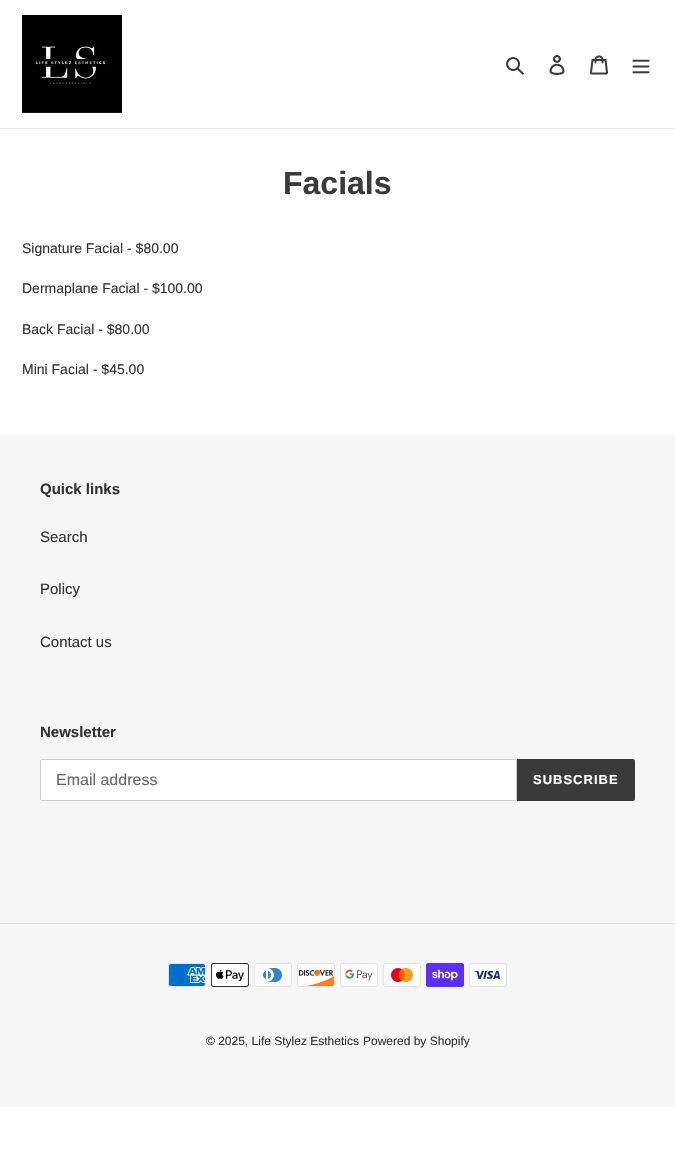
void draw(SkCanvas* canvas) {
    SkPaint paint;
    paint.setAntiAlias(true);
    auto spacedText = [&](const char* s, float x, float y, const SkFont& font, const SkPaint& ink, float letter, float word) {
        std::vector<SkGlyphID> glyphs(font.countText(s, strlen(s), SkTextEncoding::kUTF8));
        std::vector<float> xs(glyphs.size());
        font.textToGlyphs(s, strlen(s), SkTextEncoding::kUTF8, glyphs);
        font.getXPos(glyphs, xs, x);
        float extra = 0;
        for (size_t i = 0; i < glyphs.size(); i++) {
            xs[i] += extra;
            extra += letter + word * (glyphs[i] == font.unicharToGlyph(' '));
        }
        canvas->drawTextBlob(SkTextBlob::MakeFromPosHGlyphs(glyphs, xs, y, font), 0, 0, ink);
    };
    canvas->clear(0xFFFFFFFF);
    paint.setColor(0xFFEBEBEB);
    canvas->drawRect(SkRect::MakeXYWH(0, 128, 675, 1), paint);
    canvas->drawImageRect(SkImages::DeferredFromEncodedData(SkData::MakeFromFileName("img1.png")), SkRect::MakeXYWH(22, 15, 100, 98), SkSamplingOptions());
    canvas->drawImageRect(SkImages::DeferredFromEncodedData(SkData::MakeFromFileName("img2.png")), SkRect::MakeXYWH(506, 57, 18, 18), SkSamplingOptions());
    canvas->drawImageRect(SkImages::DeferredFromEncodedData(SkData::MakeFromFileName("img3.png")), SkRect::MakeXYWH(549, 55, 16, 20), SkSamplingOptions());
    canvas->drawImageRect(SkImages::DeferredFromEncodedData(SkData::MakeFromFileName("img4.png")), SkRect::MakeXYWH(590, 55, 18, 20), SkSamplingOptions());
    canvas->drawImageRect(SkImages::DeferredFromEncodedData(SkData::MakeFromFileName("img5.png")), SkRect::MakeXYWH(632, 59, 18, 15), SkSamplingOptions());
    SkFont font1(fontMgr->matchFamilyStyle("Liberation Sans", SkFontStyle::Bold()), 32);
    font1.setSubpixel(true);
    paint.setColor(0xFF3A3A3A);
    canvas->drawString("Facials", 283, 194, font1, paint);
    SkFont font2(fontMgr->matchFamilyStyle("Liberation Sans", SkFontStyle::Normal()), 14);
    font2.setSubpixel(true);
    paint.setColor(0xFF333232);
    canvas->drawString("Signature Facial - $80.00", 22, 253, font2, paint);
    canvas->drawString("Dermaplane Facial - $100.00", 22, 293, font2, paint);
    canvas->drawString("Back Facial - $80.00", 22, 334, font2, paint);
    canvas->drawString("Mini Facial - $45.00", 22, 374, font2, paint);
    paint.setColor(0xFFF6F6F6);
    canvas->drawRect(SkRect::MakeXYWH(0, 435, 675, 672), paint);
    SkFont font3(fontMgr->matchFamilyStyle("Liberation Sans", SkFontStyle::Bold()), 15);
    font3.setSubpixel(true);
    paint.setColor(0xFF333232);
    canvas->drawString("Quick links", 40, 494, font3, paint);
    SkFont font4(fontMgr->matchFamilyStyle("Liberation Sans", SkFontStyle::Normal()), 15);
    font4.setSubpixel(true);
    canvas->drawString("Search", 40, 542, font4, paint);
    canvas->drawString("Policy", 40, 594, font4, paint);
    canvas->drawString("Contact us", 40, 647, font4, paint);
    canvas->drawString("Newsletter", 40, 737, font3, paint);
    paint.setColor(0xFFFFFFFF);
    canvas->drawPath(SkPathBuilder().moveTo(42, 759.5f).lineTo(516.5f, 759.5f).lineTo(516.5f, 800.5f).lineTo(42, 800.5f).cubicTo(41, 800.5f, 40.5f, 800, 40.5f, 799).lineTo(40.5f, 761).cubicTo(40.5f, 760, 41, 759.5f, 42, 759.5f).close().detach(), paint);
    paint.setStyle(SkPaint::kStroke_Style);
    paint.setStrokeWidth(1);
    paint.setColor(0xFFCCCCCC);
    canvas->drawPath(SkPathBuilder().moveTo(42, 759.5f).lineTo(516.5f, 759.5f).lineTo(516.5f, 800.5f).lineTo(42, 800.5f).cubicTo(41, 800.5f, 40.5f, 800, 40.5f, 799).lineTo(40.5f, 761).cubicTo(40.5f, 760, 41, 759.5f, 42, 759.5f).close().detach(), paint);
    SkFont font5(fontMgr->matchFamilyStyle("Liberation Sans", SkFontStyle::Normal()), 16);
    font5.setSubpixel(true);
    paint.setStyle(SkPaint::kFill_Style);
    paint.setColor(0xFF666666);
    canvas->drawString("Email address", 56, 785, font5, paint);
    paint.setColor(0xFF3A3A3A);
    canvas->drawPath(SkPathBuilder().moveTo(517, 759).lineTo(633, 759).cubicTo(634, 759, 635, 760, 635, 761).lineTo(635, 799).cubicTo(635, 800, 634, 801, 633, 801).lineTo(517, 801).close().detach(), paint);
    SkFont font6(fontMgr->matchFamilyStyle("Liberation Sans", SkFontStyle::Bold()), 13);
    font6.setSubpixel(true);
    paint.setColor(0xFFFFFFFF);
    spacedText("SUBSCRIBE", 533, 784, font6, paint, 1, 0);
    paint.setColor(0xFFDDDDDD);
    canvas->drawRect(SkRect::MakeXYWH(0, 923, 675, 1), paint);
    canvas->drawImageRect(SkImages::DeferredFromEncodedData(SkData::MakeFromFileName("img6.png")), SkRect::MakeXYWH(168, 963, 38, 24), SkSamplingOptions());
    canvas->drawImageRect(SkImages::DeferredFromEncodedData(SkData::MakeFromFileName("img7.png")), SkRect::MakeXYWH(211, 963, 38, 24), SkSamplingOptions());
    canvas->drawImageRect(SkImages::DeferredFromEncodedData(SkData::MakeFromFileName("img8.png")), SkRect::MakeXYWH(254, 963, 38, 24), SkSamplingOptions());
    canvas->drawImageRect(SkImages::DeferredFromEncodedData(SkData::MakeFromFileName("img9.png")), SkRect::MakeXYWH(297, 963, 38, 24), SkSamplingOptions());
    canvas->drawImageRect(SkImages::DeferredFromEncodedData(SkData::MakeFromFileName("img10.png")), SkRect::MakeXYWH(340, 963, 38, 24), SkSamplingOptions());
    canvas->drawImageRect(SkImages::DeferredFromEncodedData(SkData::MakeFromFileName("img11.png")), SkRect::MakeXYWH(383, 963, 38, 24), SkSamplingOptions());
    canvas->drawImageRect(SkImages::DeferredFromEncodedData(SkData::MakeFromFileName("img12.png")), SkRect::MakeXYWH(426, 963, 38, 24), SkSamplingOptions());
    canvas->drawImageRect(SkImages::DeferredFromEncodedData(SkData::MakeFromFileName("img13.png")), SkRect::MakeXYWH(469, 963, 38, 24), SkSamplingOptions());
    SkFont font7(fontMgr->matchFamilyStyle("Liberation Sans", SkFontStyle::Normal()), 12);
    font7.setSubpixel(true);
    paint.setColor(0xFF333232);
    canvas->drawString("© 2025, Life Stylez Esthetics", 206, 1045, font7, paint);
    canvas->drawString("Powered by Shopify", 363, 1045, font7, paint);
}
